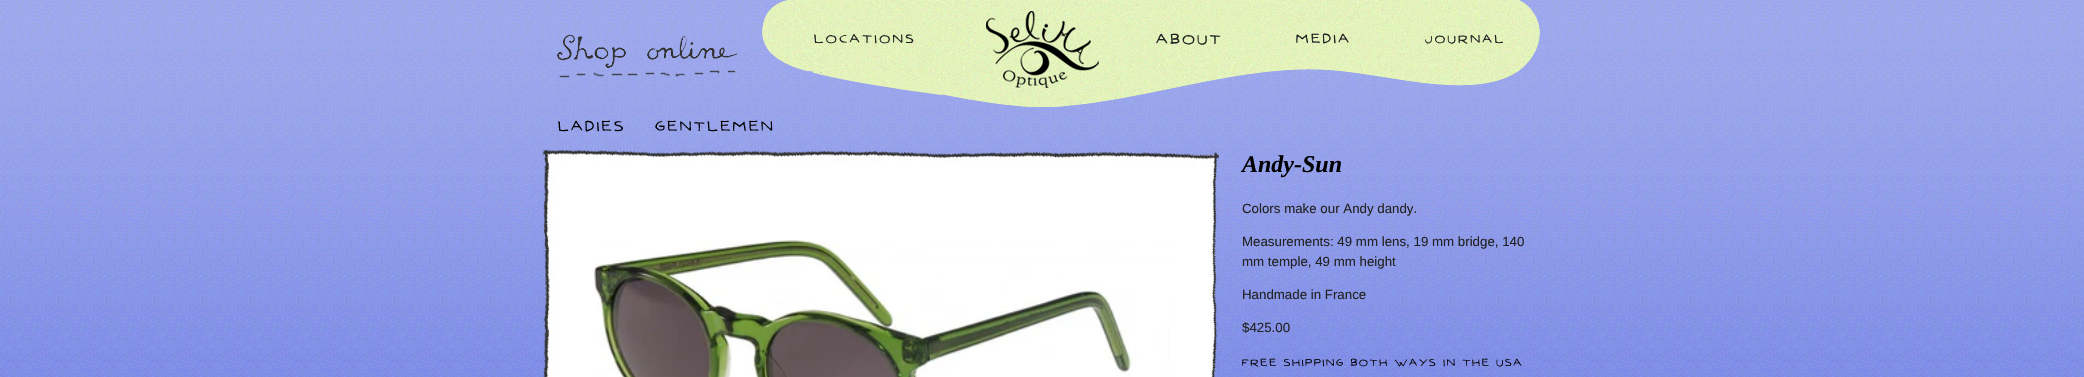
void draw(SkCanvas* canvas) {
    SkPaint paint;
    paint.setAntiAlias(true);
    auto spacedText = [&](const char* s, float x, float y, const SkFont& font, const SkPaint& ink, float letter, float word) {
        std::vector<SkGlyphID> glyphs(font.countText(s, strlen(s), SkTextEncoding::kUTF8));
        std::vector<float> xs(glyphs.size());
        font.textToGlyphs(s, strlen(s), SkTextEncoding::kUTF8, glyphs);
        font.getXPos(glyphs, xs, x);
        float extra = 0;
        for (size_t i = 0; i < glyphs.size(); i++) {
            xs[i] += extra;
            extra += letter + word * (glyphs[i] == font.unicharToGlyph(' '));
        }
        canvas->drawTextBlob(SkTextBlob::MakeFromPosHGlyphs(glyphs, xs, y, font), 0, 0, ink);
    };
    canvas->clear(0xFFFFFFFF);
    canvas->drawImageRect(SkImages::DeferredFromEncodedData(SkData::MakeFromFileName("img1.png")), SkRect::MakeXYWH(0, 0, 2084, 377), SkSamplingOptions());
    canvas->drawImageRect(SkImages::DeferredFromEncodedData(SkData::MakeFromFileName("img2.png")), SkRect::MakeXYWH(0, 0, 2084, 377), SkSamplingOptions());
    canvas->drawImageRect(SkImages::DeferredFromEncodedData(SkData::MakeFromFileName("img3.png")), SkRect::MakeXYWH(557, 0, 983, 107), SkSamplingOptions());
    SkFont font1(fontMgr->matchFamilyStyle("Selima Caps", SkFontStyle(500, SkFontStyle::kNormal_Width, SkFontStyle::kUpright_Slant)), 21);
    font1.setSubpixel(true);
    paint.setColor(0xFF222222);
    spacedText("LOCATIONS", 814, 43, font1, paint, 2.5f, 0);
    canvas->drawImageRect(SkImages::DeferredFromEncodedData(SkData::MakeFromFileName("img4.png")), SkRect::MakeXYWH(986, 11, 113, 77), SkSamplingOptions());
    SkFont font2(fontMgr->matchFamilyStyle("Selima Caps", SkFontStyle(500, SkFontStyle::kNormal_Width, SkFontStyle::kUpright_Slant)), 24);
    font2.setSubpixel(true);
    spacedText("ABOUT", 1156, 44, font2, paint, 2.5f, 0);
    SkFont font3(fontMgr->matchFamilyStyle("Selima Caps", SkFontStyle(500, SkFontStyle::kNormal_Width, SkFontStyle::kUpright_Slant)), 22);
    font3.setSubpixel(true);
    spacedText("MEDIA", 1296, 43, font3, paint, 2.5f, 0);
    SkFont font4(fontMgr->matchFamilyStyle("Selima Caps", SkFontStyle(500, SkFontStyle::kNormal_Width, SkFontStyle::kUpright_Slant)), 20);
    font4.setSubpixel(true);
    spacedText("JOURNAL", 1425, 43, font4, paint, 2.5f, 0);
    canvas->drawImageRect(SkImages::DeferredFromEncodedData(SkData::MakeFromFileName("img5.png")), SkRect::MakeXYWH(558, 120, 65, 12), SkSamplingOptions());
    canvas->drawImageRect(SkImages::DeferredFromEncodedData(SkData::MakeFromFileName("img6.png")), SkRect::MakeXYWH(655, 120, 118, 12), SkSamplingOptions());
    canvas->drawImageRect(SkImages::DeferredFromEncodedData(SkData::MakeFromFileName("img7.png")), SkRect::MakeXYWH(542, 150, 677, 227), SkSamplingOptions());
    canvas->drawImageRect(SkImages::DeferredFromEncodedData(SkData::MakeFromFileName("img8.png")), SkRect::MakeXYWH(593, 240, 577, 137), SkSamplingOptions());
    SkFont font5(fontMgr->matchFamilyStyle("Liberation Serif", SkFontStyle::BoldItalic()), 24);
    font5.setSubpixel(true);
    paint.setColor(0xFF000000);
    canvas->drawString("Andy-Sun", 1242, 172, font5, paint);
    SkFont font6(fontMgr->matchFamilyStyle("Liberation Sans", SkFontStyle::Normal()), 13.3f);
    font6.setSubpixel(true);
    paint.setColor(0xFF222222);
    canvas->drawString("Colors make our Andy dandy.", 1242, 213, font6, paint);
    canvas->drawString("Measurements: 49 mm lens, 19 mm bridge, 140", 1242, 246, font6, paint);
    canvas->drawString("mm temple, 49 mm height", 1242, 266, font6, paint);
    canvas->drawString("Handmade in France", 1242, 299, font6, paint);
    canvas->drawString("$425.00", 1242, 332, font6, paint);
    canvas->drawImageRect(SkImages::DeferredFromEncodedData(SkData::MakeFromFileName("img9.png")), SkRect::MakeXYWH(1242, 358, 280, 9), SkSamplingOptions());
}
